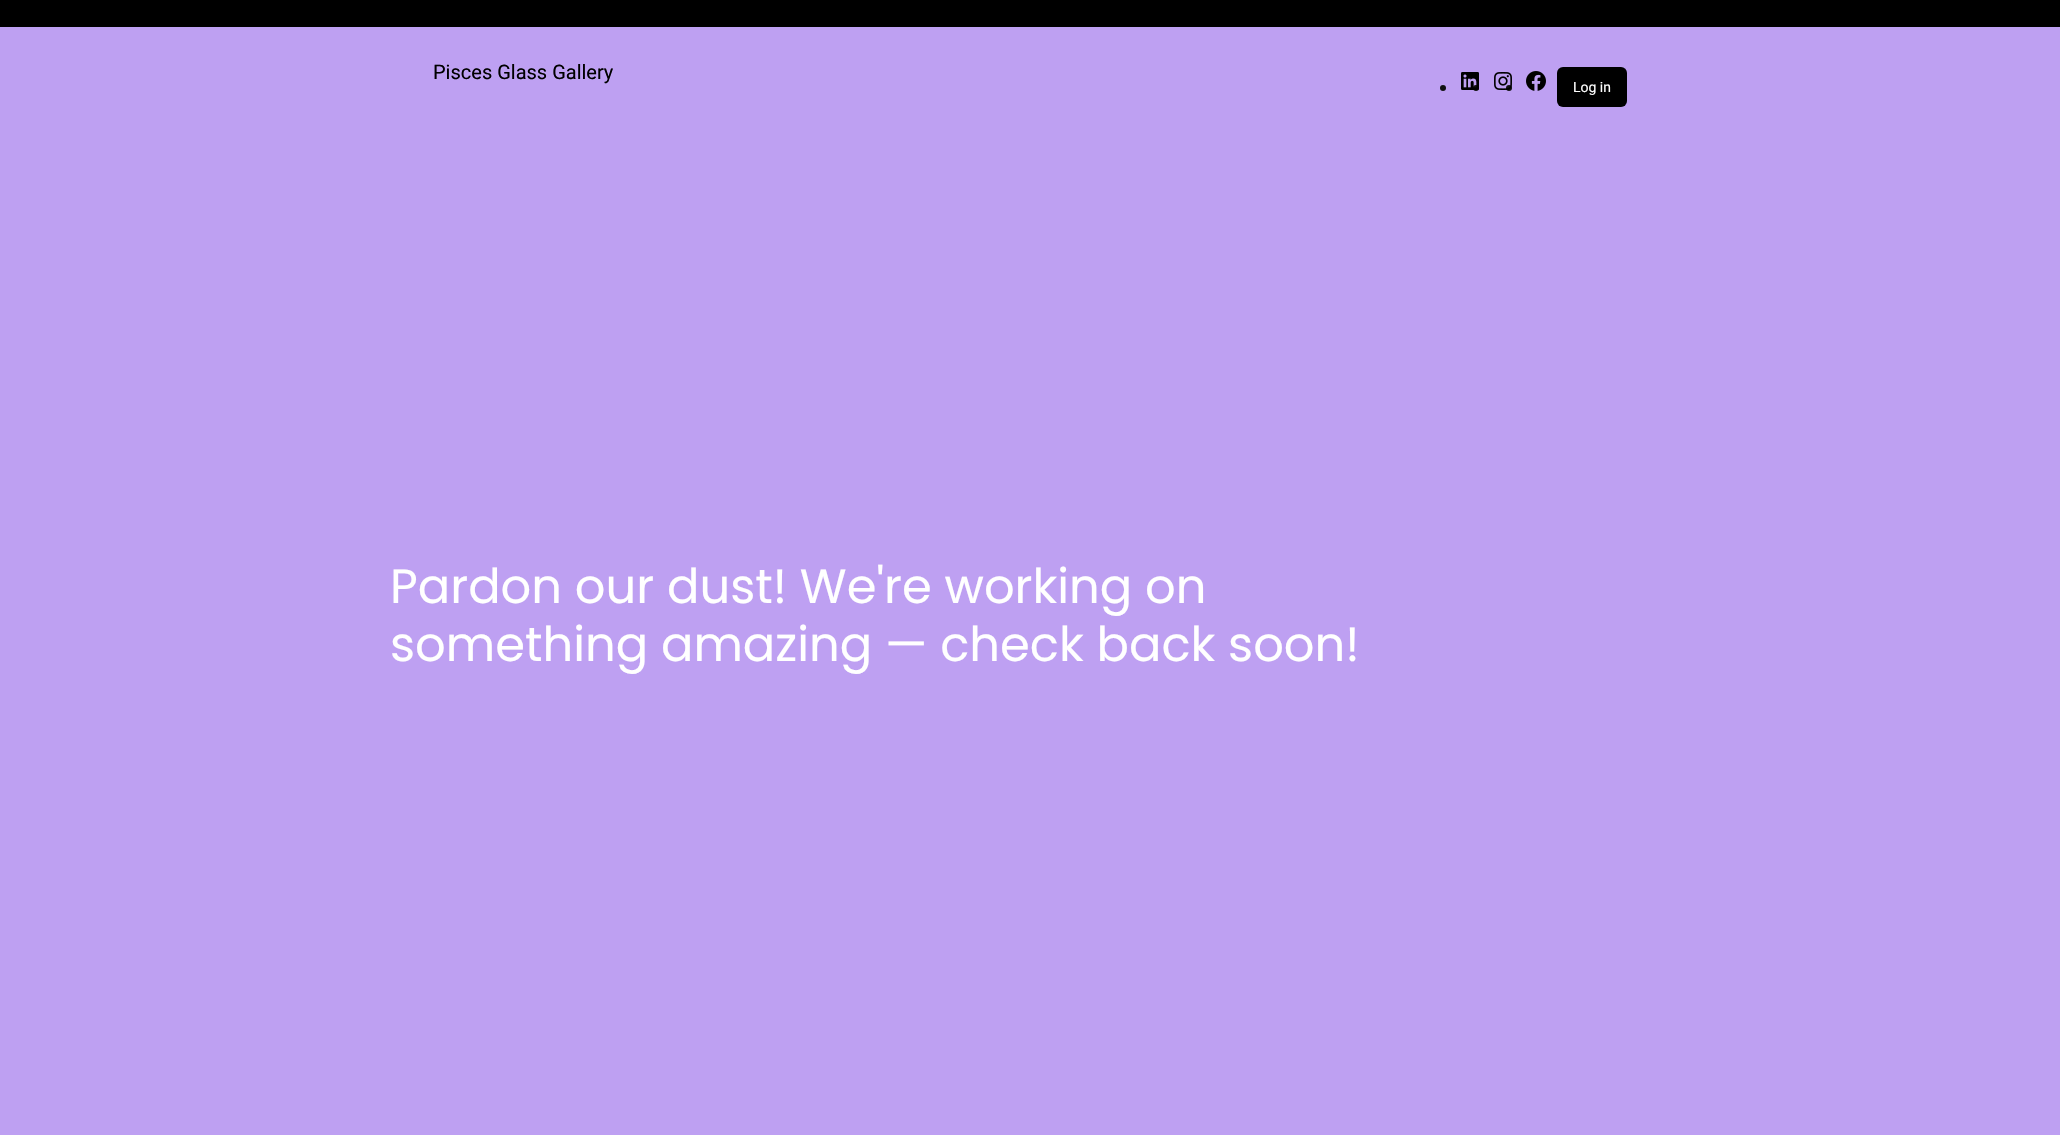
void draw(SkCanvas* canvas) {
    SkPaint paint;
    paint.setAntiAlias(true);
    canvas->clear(0xFF000000);
    paint.setColor(0xFFBEA0F2);
    canvas->drawRect(SkRect::MakeXYWH(0, 27, 2060, 1108), paint);
    SkFont font1(fontMgr->matchFamilyStyle("Roboto", SkFontStyle::Normal()), 20);
    font1.setSubpixel(true);
    paint.setColor(0xFF000000);
    canvas->drawString("Pisces Glass Gallery", 433, 79, font1, paint);
    paint.setColor(0xFF111111);
    canvas->drawCircle(1443, 88, 3, paint);
    canvas->drawCircle(1476, 88, 3, paint);
    canvas->drawImageRect(SkImages::DeferredFromEncodedData(SkData::MakeFromFileName("img1.png")), SkRect::MakeXYWH(1461, 72, 18, 18), SkSamplingOptions());
    canvas->drawCircle(1509, 88, 3, paint);
    canvas->drawImageRect(SkImages::DeferredFromEncodedData(SkData::MakeFromFileName("img2.png")), SkRect::MakeXYWH(1494, 72, 18, 18), SkSamplingOptions());
    canvas->drawImageRect(SkImages::DeferredFromEncodedData(SkData::MakeFromFileName("img3.png")), SkRect::MakeXYWH(1526, 71, 20, 20), SkSamplingOptions());
    paint.setColor(0xFF000000);
    canvas->drawRoundRect(SkRect::MakeXYWH(1557, 67, 70, 40), 6, 6, paint);
    SkFont font2(fontMgr->matchFamilyStyle("Roboto", SkFontStyle::Normal()), 14);
    font2.setSubpixel(true);
    paint.setColor(0xFFFFFFFF);
    canvas->drawString("Log in", 1573, 92, font2, paint);
    SkFont font3(fontMgr->matchFamilyStyle("Poppins", SkFontStyle::Normal()), 48);
    font3.setSubpixel(true);
    canvas->drawString("Pardon our dust! We're working on", 390, 603, font3, paint);
    canvas->drawString("something amazing — check back soon!", 390, 661, font3, paint);
}
